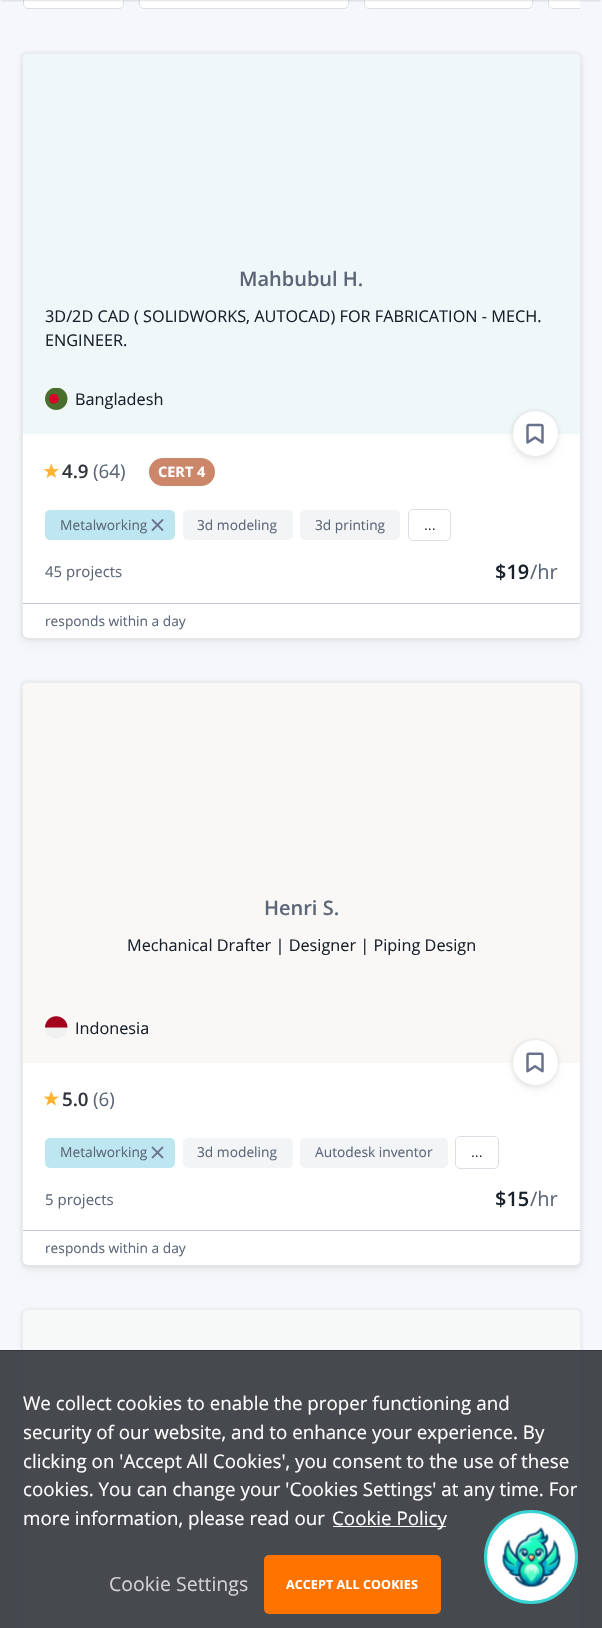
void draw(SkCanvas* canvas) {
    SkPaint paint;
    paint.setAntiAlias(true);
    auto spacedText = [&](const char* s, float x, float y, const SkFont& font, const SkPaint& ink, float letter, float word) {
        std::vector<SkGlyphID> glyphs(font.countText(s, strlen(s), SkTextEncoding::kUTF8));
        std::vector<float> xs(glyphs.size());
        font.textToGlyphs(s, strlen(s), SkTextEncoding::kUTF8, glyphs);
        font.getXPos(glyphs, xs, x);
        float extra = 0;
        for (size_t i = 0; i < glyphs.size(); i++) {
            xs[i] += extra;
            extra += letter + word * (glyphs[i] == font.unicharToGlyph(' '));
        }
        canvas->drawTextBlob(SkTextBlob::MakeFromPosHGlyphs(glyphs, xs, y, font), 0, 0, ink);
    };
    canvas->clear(0xFFF5F7FA);
    paint.setColor(0xFFFFFFFF);
    canvas->drawRoundRect(SkRect::MakeXYWH(23, -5, 101, 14), 5, 5, paint);
    paint.setStyle(SkPaint::kStroke_Style);
    paint.setStrokeWidth(1);
    paint.setColor(0x99C3C8D4);
    canvas->drawRoundRect(SkRect::MakeXYWH(23.5f, -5.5f, 100, 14), 4.5f, 4.5f, paint);
    paint.setStyle(SkPaint::kFill_Style);
    paint.setColor(0xFFFFFFFF);
    canvas->drawRoundRect(SkRect::MakeXYWH(139, -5, 210, 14), 5, 5, paint);
    paint.setStyle(SkPaint::kStroke_Style);
    paint.setColor(0x99C3C8D4);
    canvas->drawRoundRect(SkRect::MakeXYWH(139.5f, -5.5f, 209, 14), 4.5f, 4.5f, paint);
    paint.setStyle(SkPaint::kFill_Style);
    paint.setColor(0xFFFFFFFF);
    canvas->drawRoundRect(SkRect::MakeXYWH(364, -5, 169, 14), 5, 5, paint);
    paint.setStyle(SkPaint::kStroke_Style);
    paint.setColor(0x99C3C8D4);
    canvas->drawRoundRect(SkRect::MakeXYWH(364.5f, -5.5f, 168, 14), 4.5f, 4.5f, paint);
    paint.setStyle(SkPaint::kFill_Style);
    paint.setColor(0xFFFFFFFF);
    canvas->drawPath(SkPathBuilder().moveTo(553, -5).lineTo(580, -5).lineTo(580, 9).lineTo(553, 9).cubicTo(550, 9, 548, 7, 548, 4).lineTo(548, 0).cubicTo(548, -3, 550, -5, 553, -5).close().detach(), paint);
    canvas->save();
    canvas->clipRect(SkRect::MakeXYWH(23, 0, 557, 9));
    paint.setStyle(SkPaint::kStroke_Style);
    paint.setColor(0x99C3C8D4);
    canvas->drawRoundRect(SkRect::MakeXYWH(548.5f, -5.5f, 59, 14), 4.5f, 4.5f, paint);
    canvas->restore();
    paint.setStyle(SkPaint::kFill_Style);
    paint.setColor(0x2632353B);
    paint.setMaskFilter(SkMaskFilter::MakeBlur(kNormal_SkBlurStyle, 1));
    canvas->drawRect(SkRect::MakeXYWH(1, -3, 600, 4), paint);
    paint.setMaskFilter(nullptr);
    paint.setColor(0x0A000000);
    paint.setMaskFilter(SkMaskFilter::MakeBlur(kNormal_SkBlurStyle, 3));
    canvas->drawRoundRect(SkRect::MakeXYWH(23, 60, 557, 584), 5, 5, paint);
    paint.setMaskFilter(nullptr);
    paint.setMaskFilter(SkMaskFilter::MakeBlur(kNormal_SkBlurStyle, 1));
    canvas->drawRoundRect(SkRect::MakeXYWH(20, 51, 563, 589), 8, 8, paint);
    paint.setMaskFilter(nullptr);
    paint.setColor(0xFFFFFFFF);
    canvas->drawRoundRect(SkRect::MakeXYWH(23, 54, 557, 584), 5, 5, paint);
    paint.setColor(0xFFF0F7F8);
    canvas->drawPath(SkPathBuilder().moveTo(28, 54).lineTo(575, 54).cubicTo(578, 54, 580, 56, 580, 59).lineTo(580, 434).lineTo(23, 434).lineTo(23, 59).cubicTo(23, 56, 25, 54, 28, 54).close().detach(), paint);
    SkFont font1(fontMgr->matchFamilyStyle("Open Sans", SkFontStyle(600, SkFontStyle::kNormal_Width, SkFontStyle::kUpright_Slant)), 20);
    font1.setSubpixel(true);
    paint.setColor(0xFF5B6678);
    canvas->drawString("Mahbubul H.", 239, 286, font1, paint);
    SkFont font2(fontMgr->matchFamilyStyle("Open Sans", SkFontStyle::Normal()), 16.25f);
    font2.setSubpixel(true);
    paint.setColor(0xFF18202B);
    canvas->drawString("3D/2D CAD ( SOLIDWORKS, AUTOCAD) FOR FABRICATION - MECH.", 45, 322, font2, paint);
    canvas->drawString("ENGINEER.", 45, 346, font2, paint);
    canvas->drawImageRect(SkImages::DeferredFromEncodedData(SkData::MakeFromFileName("img1.png")), SkRect::MakeXYWH(45, 388, 23, 22), SkSamplingOptions());
    canvas->drawString("Bangladesh", 75, 405, font2, paint);
    paint.setColor(0x0A000000);
    paint.setMaskFilter(SkMaskFilter::MakeBlur(kNormal_SkBlurStyle, 3));
    canvas->drawRoundRect(SkRect::MakeXYWH(513, 418, 45, 45), 22.5f, 22.5f, paint);
    paint.setMaskFilter(nullptr);
    paint.setMaskFilter(SkMaskFilter::MakeBlur(kNormal_SkBlurStyle, 1));
    canvas->drawRoundRect(SkRect::MakeXYWH(510, 409, 50, 50), 25, 25, paint);
    paint.setMaskFilter(nullptr);
    paint.setColor(0xFFFFFFFF);
    canvas->drawCircle(535.5f, 433.5f, 22.5f, paint);
    canvas->drawImageRect(SkImages::DeferredFromEncodedData(SkData::MakeFromFileName("img2.png")), SkRect::MakeXYWH(526, 423, 18, 21), SkSamplingOptions());
    canvas->drawImageRect(SkImages::DeferredFromEncodedData(SkData::MakeFromFileName("img3.png")), SkRect::MakeXYWH(43, 463, 16, 15), SkSamplingOptions());
    SkFont font3(fontMgr->matchFamilyStyle("Open Sans", SkFontStyle(600, SkFontStyle::kNormal_Width, SkFontStyle::kUpright_Slant)), 18.75f);
    font3.setSubpixel(true);
    paint.setColor(0xFF32353B);
    canvas->drawString("4.9", 62, 478, font3, paint);
    SkFont font4(fontMgr->matchFamilyStyle("Open Sans", SkFontStyle::Normal()), 18.75f);
    font4.setSubpixel(true);
    paint.setColor(0xFF5B6678);
    canvas->drawString("(64)", 93, 478, font4, paint);
    paint.setColor(0xFFCC866A);
    canvas->drawRoundRect(SkRect::MakeXYWH(149, 458, 66, 28), 14, 14, paint);
    SkFont font5(fontMgr->matchFamilyStyle("Open Sans", SkFontStyle::Bold()), 14.5f);
    font5.setSubpixel(true);
    paint.setColor(0xFFFFFFFF);
    canvas->drawString("CERT 4", 158, 477, font5, paint);
    paint.setColor(0xFFBDE6F1);
    canvas->drawRoundRect(SkRect::MakeXYWH(45, 510, 130, 30), 5, 5, paint);
    SkFont font6(fontMgr->matchFamilyStyle("Open Sans", SkFontStyle::Normal()), 13.75f);
    font6.setSubpixel(true);
    paint.setColor(0xFF5B6678);
    canvas->drawString("Metalworking", 60, 530, font6, paint);
    canvas->drawImageRect(SkImages::DeferredFromEncodedData(SkData::MakeFromFileName("img4.png")), SkRect::MakeXYWH(151, 519, 13, 12), SkSamplingOptions());
    paint.setColor(0xFFF3F4F6);
    canvas->drawRoundRect(SkRect::MakeXYWH(183, 510, 110, 30), 5, 5, paint);
    paint.setColor(0xFF5B6678);
    canvas->drawString("3d modeling", 197, 530, font6, paint);
    paint.setColor(0xFFF3F4F6);
    canvas->drawRoundRect(SkRect::MakeXYWH(300, 510, 100, 30), 5, 5, paint);
    paint.setColor(0xFF5B6678);
    canvas->drawString("3d printing", 315, 530, font6, paint);
    paint.setStyle(SkPaint::kStroke_Style);
    paint.setColor(0xFFDBDEE5);
    canvas->drawRoundRect(SkRect::MakeXYWH(408.5f, 509.5f, 42, 31), 4.5f, 4.5f, paint);
    SkFont font7(fontMgr->matchFamilyStyle("Liberation Sans", SkFontStyle::Normal()), 13.75f);
    font7.setSubpixel(true);
    paint.setStyle(SkPaint::kFill_Style);
    paint.setColor(0xFF18202B);
    canvas->drawString("...", 424, 530, font7, paint);
    SkFont font8(fontMgr->matchFamilyStyle("Open Sans", SkFontStyle::Normal()), 15);
    font8.setSubpixel(true);
    paint.setColor(0xFF5B6678);
    canvas->drawString("45 projects", 45, 577, font8, paint);
    paint.setColor(0xFF18202B);
    canvas->drawString("$19", 495, 579, font1, paint);
    SkFont font9(fontMgr->matchFamilyStyle("Open Sans", SkFontStyle::Normal()), 20);
    font9.setSubpixel(true);
    paint.setColor(0xFF5B6678);
    canvas->drawString("/hr", 530, 579, font9, paint);
    paint.setColor(0xFFC3C8D4);
    canvas->drawRect(SkRect::MakeXYWH(23, 603, 557, 1), paint);
    paint.setColor(0xFF5B6678);
    canvas->drawString("responds within a day", 45, 626, font6, paint);
    paint.setColor(0x0A000000);
    paint.setMaskFilter(SkMaskFilter::MakeBlur(kNormal_SkBlurStyle, 3));
    canvas->drawRoundRect(SkRect::MakeXYWH(23, 689, 557, 582), 5, 5, paint);
    paint.setMaskFilter(nullptr);
    paint.setMaskFilter(SkMaskFilter::MakeBlur(kNormal_SkBlurStyle, 1));
    canvas->drawRoundRect(SkRect::MakeXYWH(20, 680, 563, 588), 8, 8, paint);
    paint.setMaskFilter(nullptr);
    paint.setColor(0xFFFFFFFF);
    canvas->drawRoundRect(SkRect::MakeXYWH(23, 683, 557, 582), 5, 5, paint);
    paint.setColor(0xFFFAF8F6);
    canvas->drawPath(SkPathBuilder().moveTo(28, 683).lineTo(575, 683).cubicTo(578, 683, 580, 685, 580, 688).lineTo(580, 1063).lineTo(23, 1063).lineTo(23, 688).cubicTo(23, 685, 25, 683, 28, 683).close().detach(), paint);
    paint.setColor(0xFF5B6678);
    canvas->drawString("Henri S.", 264, 915, font1, paint);
    paint.setColor(0xFF18202B);
    canvas->drawString("Mechanical Drafter | Designer | Piping Design", 127, 951, font2, paint);
    canvas->drawImageRect(SkImages::DeferredFromEncodedData(SkData::MakeFromFileName("img5.png")), SkRect::MakeXYWH(45, 1016, 23, 23), SkSamplingOptions());
    canvas->drawString("Indonesia", 75, 1034, font2, paint);
    paint.setColor(0x0A000000);
    paint.setMaskFilter(SkMaskFilter::MakeBlur(kNormal_SkBlurStyle, 3));
    canvas->drawRoundRect(SkRect::MakeXYWH(513, 1046, 45, 45), 22.5f, 22.5f, paint);
    paint.setMaskFilter(nullptr);
    paint.setMaskFilter(SkMaskFilter::MakeBlur(kNormal_SkBlurStyle, 1));
    canvas->drawRoundRect(SkRect::MakeXYWH(510, 1038, 50, 50), 25, 25, paint);
    paint.setMaskFilter(nullptr);
    paint.setColor(0xFFFFFFFF);
    canvas->drawCircle(535.5f, 1062.5f, 22.5f, paint);
    canvas->drawImageRect(SkImages::DeferredFromEncodedData(SkData::MakeFromFileName("img6.png")), SkRect::MakeXYWH(526, 1052, 18, 21), SkSamplingOptions());
    canvas->drawImageRect(SkImages::DeferredFromEncodedData(SkData::MakeFromFileName("img7.png")), SkRect::MakeXYWH(43, 1091, 16, 15), SkSamplingOptions());
    paint.setColor(0xFF32353B);
    canvas->drawString("5.0", 62, 1106, font3, paint);
    paint.setColor(0xFF5B6678);
    canvas->drawString("(6)", 93, 1106, font4, paint);
    paint.setColor(0xFFBDE6F1);
    canvas->drawRoundRect(SkRect::MakeXYWH(45, 1138, 130, 30), 5, 5, paint);
    paint.setColor(0xFF5B6678);
    canvas->drawString("Metalworking", 60, 1157, font6, paint);
    canvas->drawImageRect(SkImages::DeferredFromEncodedData(SkData::MakeFromFileName("img8.png")), SkRect::MakeXYWH(151, 1146, 13, 13), SkSamplingOptions());
    paint.setColor(0xFFF3F4F6);
    canvas->drawRoundRect(SkRect::MakeXYWH(183, 1138, 110, 30), 5, 5, paint);
    paint.setColor(0xFF5B6678);
    canvas->drawString("3d modeling", 197, 1157, font6, paint);
    paint.setColor(0xFFF3F4F6);
    canvas->drawRoundRect(SkRect::MakeXYWH(300, 1138, 148, 30), 5, 5, paint);
    paint.setColor(0xFF5B6678);
    canvas->drawString("Autodesk inventor", 315, 1157, font6, paint);
    paint.setStyle(SkPaint::kStroke_Style);
    paint.setColor(0xFFDBDEE5);
    canvas->drawRoundRect(SkRect::MakeXYWH(455.5f, 1136.5f, 43, 32), 4.5f, 4.5f, paint);
    paint.setStyle(SkPaint::kFill_Style);
    paint.setColor(0xFF18202B);
    canvas->drawString("...", 471, 1157, font7, paint);
    paint.setColor(0xFF5B6678);
    canvas->drawString("5 projects", 45, 1205, font8, paint);
    paint.setColor(0xFF18202B);
    canvas->drawString("$15", 495, 1206, font1, paint);
    paint.setColor(0xFF5B6678);
    canvas->drawString("/hr", 530, 1206, font9, paint);
    paint.setColor(0xFFC3C8D4);
    canvas->drawRect(SkRect::MakeXYWH(23, 1230, 557, 1), paint);
    paint.setColor(0xFF5B6678);
    canvas->drawString("responds within a day", 45, 1253, font6, paint);
    paint.setColor(0x0A000000);
    paint.setMaskFilter(SkMaskFilter::MakeBlur(kNormal_SkBlurStyle, 1));
    canvas->drawRoundRect(SkRect::MakeXYWH(20, 1308, 563, 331), 8, 8, paint);
    paint.setMaskFilter(nullptr);
    paint.setColor(0xFFF6F9F8);
    canvas->drawPath(SkPathBuilder().moveTo(28, 1310).lineTo(575, 1310).cubicTo(578, 1310, 580, 1312, 580, 1315).lineTo(580, 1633).lineTo(23, 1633).lineTo(23, 1315).cubicTo(23, 1312, 25, 1310, 28, 1310).close().detach(), paint);
    paint.setColor(0xE632353B);
    canvas->drawRect(SkRect::MakeXYWH(0, 1351, 602, 277), paint);
    paint.setColor(0xFF34373D);
    canvas->drawRect(SkRect::MakeXYWH(0, 1350, 602, 1), paint);
    paint.setColor(0xFFFFFFFF);
    canvas->drawString("We collect cookies to enable the proper functioning and", 23, 1410, font4, paint);
    canvas->drawString("security of our website, and to enhance your experience. By", 23, 1439, font4, paint);
    canvas->drawString("clicking on 'Accept All Cookies', you consent to the use of these", 23, 1468, font4, paint);
    canvas->drawString("cookies. You can change your 'Cookies Settings' at any time. For", 23, 1496, font4, paint);
    canvas->drawString("more information, please read our", 23, 1525, font4, paint);
    canvas->drawRect(SkRect::MakeXYWH(333, 1526, 113, 1), paint);
    canvas->drawString("Cookie Policy", 332, 1525, font4, paint);
    SkFont font10(fontMgr->matchFamilyStyle("Open Sans", SkFontStyle::Normal()), 19.5f);
    font10.setSubpixel(true);
    paint.setColor(0xFFD1D1D3);
    canvas->drawString("Cookie Settings", 109, 1591, font10, paint);
    paint.setColor(0xFFFF7300);
    canvas->drawRoundRect(SkRect::MakeXYWH(264, 1555, 177, 59), 5, 5, paint);
    SkFont font11(fontMgr->matchFamilyStyle("Open Sans", SkFontStyle::Bold()), 12.5f);
    font11.setSubpixel(true);
    paint.setColor(0xFFFFFFFF);
    spacedText("ACCEPT ALL COOKIES", 286, 1589, font11, paint, 0.1f, 0);
    canvas->drawCircle(531, 1557, 45.5f, paint);
    paint.setStyle(SkPaint::kStroke_Style);
    paint.setStrokeWidth(3);
    paint.setColor(0xFF38D3D2);
    canvas->drawCircle(531, 1557, 45.5f, paint);
    canvas->drawImageRect(SkImages::DeferredFromEncodedData(SkData::MakeFromFileName("img9.png")), SkRect::MakeXYWH(502, 1527, 59, 61), SkSamplingOptions());
}
